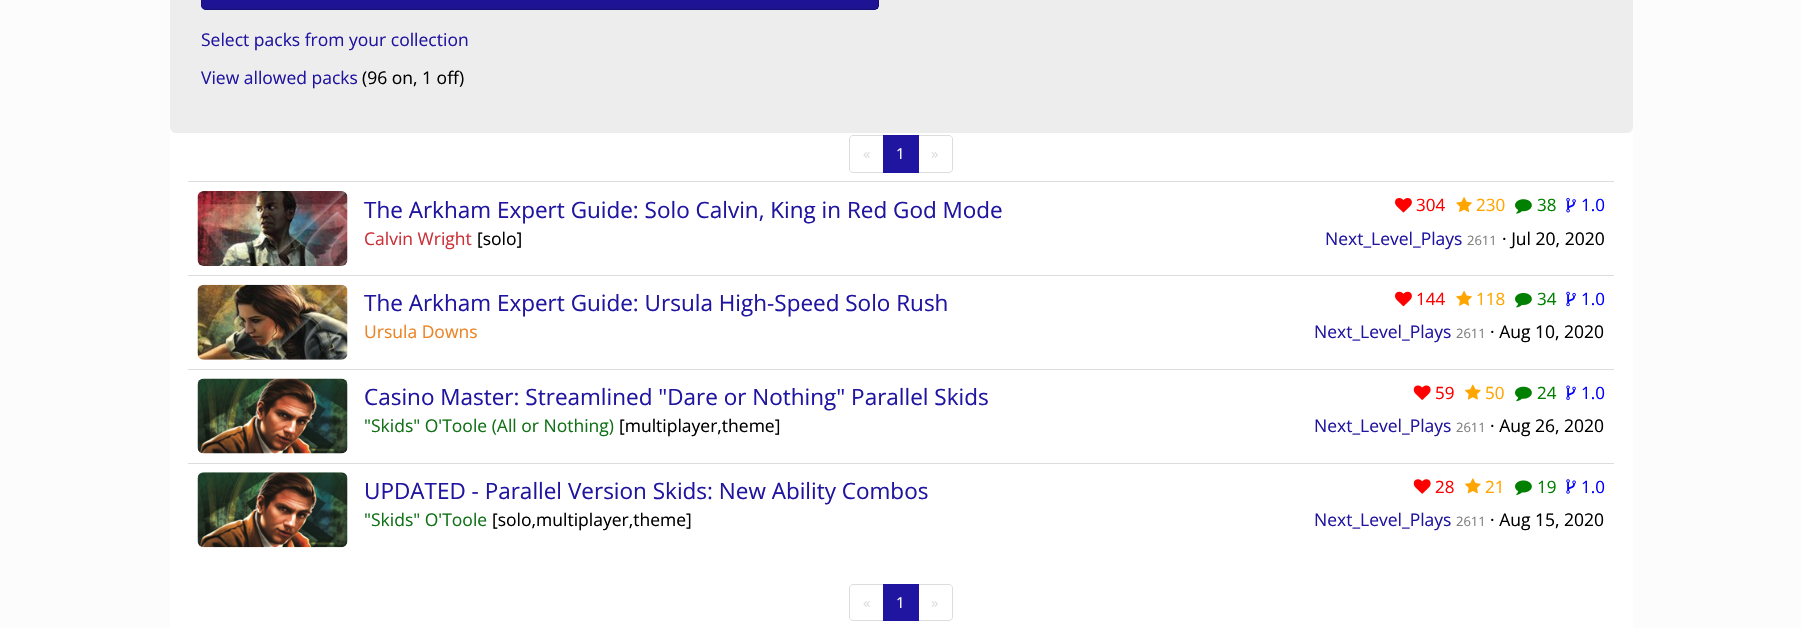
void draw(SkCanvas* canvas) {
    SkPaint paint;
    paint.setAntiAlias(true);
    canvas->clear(0xFFFCFCFC);
    paint.setColor(0xFFFFFFFF);
    canvas->drawRect(SkRect::MakeXYWH(170, 127, 1463, 501), paint);
    paint.setColor(0xFFEDEDED);
    canvas->drawRoundRect(SkRect::MakeXYWH(170, -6, 1463, 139), 6, 6, paint);
    paint.setColor(0xFF2015A0);
    canvas->drawRoundRect(SkRect::MakeXYWH(201, -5, 678, 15), 5, 5, paint);
    {
        const SkColor colors[] = {0xFF2317AE, 0xFF2015A0, 0xFF1D1392};
        const float stops[] = {0, 0.06f, 1};
        const SkPoint ends[] = {{540, -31}, {540, 9}};
        paint.setShader(SkGradientShader::MakeLinear(ends, colors, stops, 3, SkTileMode::kClamp));
        paint.setAlpha(255);
    }
    canvas->drawRect(SkRect::MakeXYWH(203, 0, 675, 9), paint);
    paint.setStyle(SkPaint::kStroke_Style);
    paint.setStrokeWidth(1);
    paint.setShader(nullptr);
    paint.setColor(0xFF170F73);
    canvas->drawRoundRect(SkRect::MakeXYWH(201.5f, -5.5f, 677, 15), 4.5f, 4.5f, paint);
    SkFont font1(fontMgr->matchFamilyStyle("Open Sans", SkFontStyle::Normal()), 17.5f);
    font1.setSubpixel(true);
    paint.setStyle(SkPaint::kFill_Style);
    paint.setColor(0xFF2015A0);
    canvas->drawString("Select packs from your collection", 201, 46, font1, paint);
    canvas->drawString("View allowed packs", 201, 84, font1, paint);
    paint.setColor(0xFF000000);
    canvas->drawString("(96 on, 1 off)", 362, 84, font1, paint);
    paint.setStyle(SkPaint::kStroke_Style);
    paint.setColor(0xFFDDDDDD);
    canvas->drawPath(SkPathBuilder().moveTo(853, 135.5f).lineTo(883.5f, 135.5f).lineTo(883.5f, 172.5f).lineTo(853, 172.5f).cubicTo(851, 172.5f, 849.5f, 171, 849.5f, 169).lineTo(849.5f, 139).cubicTo(849.5f, 137, 851, 135.5f, 853, 135.5f).close().detach(), paint);
    SkFont font2(fontMgr->matchFamilyStyle("Open Sans", SkFontStyle::Normal()), 15);
    font2.setSubpixel(true);
    paint.setStyle(SkPaint::kFill_Style);
    canvas->drawString("«", 863, 159, font2, paint);
    paint.setStyle(SkPaint::kStroke_Style);
    canvas->drawPath(SkPathBuilder().moveTo(918.5f, 135.5f).lineTo(949, 135.5f).cubicTo(951, 135.5f, 952.5f, 137, 952.5f, 139).lineTo(952.5f, 169).cubicTo(952.5f, 171, 951, 172.5f, 949, 172.5f).lineTo(918.5f, 172.5f).close().detach(), paint);
    paint.setStyle(SkPaint::kFill_Style);
    paint.setColor(0xFF2015A0);
    canvas->drawRect(SkRect::MakeXYWH(883, 135, 36, 38), paint);
    paint.setColor(0xFFFFFFFF);
    canvas->drawString("1", 896, 159, font2, paint);
    paint.setColor(0xFFDDDDDD);
    canvas->drawString("»", 931, 159, font2, paint);
    canvas->drawImageRect(SkImages::DeferredFromEncodedData(SkData::MakeFromFileName("img1.png")), SkRect::MakeXYWH(197, 191, 151, 75), SkSamplingOptions());
    canvas->drawRect(SkRect::MakeXYWH(188, 181, 1426, 1), paint);
    SkFont font3(fontMgr->matchFamilyStyle("Open Sans", SkFontStyle::Normal()), 22.5f);
    font3.setSubpixel(true);
    paint.setColor(0xFF2015A0);
    canvas->drawString("The Arkham Expert Guide: Solo Calvin, King in Red God Mode", 364, 218, font3, paint);
    canvas->drawImageRect(SkImages::DeferredFromEncodedData(SkData::MakeFromFileName("img2.png")), SkRect::MakeXYWH(1395, 198, 17, 15), SkSamplingOptions());
    SkFont font4(fontMgr->matchFamilyStyle("Open Sans", SkFontStyle::Normal()), 17);
    font4.setSubpixel(true);
    paint.setColor(0xFFFF0000);
    canvas->drawString("304", 1416, 211, font4, paint);
    canvas->drawImageRect(SkImages::DeferredFromEncodedData(SkData::MakeFromFileName("img3.png")), SkRect::MakeXYWH(1456, 197, 16, 15), SkSamplingOptions());
    paint.setColor(0xFFFFA500);
    canvas->drawString("230", 1476, 211, font4, paint);
    canvas->drawImageRect(SkImages::DeferredFromEncodedData(SkData::MakeFromFileName("img4.png")), SkRect::MakeXYWH(1515, 199, 17, 15), SkSamplingOptions());
    paint.setColor(0xFF008000);
    canvas->drawString("38", 1537, 211, font4, paint);
    canvas->drawImageRect(SkImages::DeferredFromEncodedData(SkData::MakeFromFileName("img5.png")), SkRect::MakeXYWH(1566, 198, 10, 15), SkSamplingOptions());
    paint.setColor(0xFF0000FF);
    canvas->drawString("1.0", 1581, 211, font4, paint);
    paint.setColor(0xFFCC3038);
    canvas->drawString("Calvin Wright", 364, 245, font1, paint);
    paint.setColor(0xFF000000);
    canvas->drawString("[solo]", 477, 245, font1, paint);
    paint.setColor(0xFF2015A0);
    canvas->drawString("Next_Level_Plays", 1325, 245, font1, paint);
    SkFont font5(fontMgr->matchFamilyStyle("Open Sans", SkFontStyle::Normal()), 13);
    font5.setSubpixel(true);
    paint.setColor(0xFF808080);
    canvas->drawString("2611", 1467, 245, font5, paint);
    paint.setColor(0xFF000000);
    canvas->drawString("· Jul 20, 2020", 1502, 245, font1, paint);
    canvas->drawImageRect(SkImages::DeferredFromEncodedData(SkData::MakeFromFileName("img6.png")), SkRect::MakeXYWH(197, 284, 151, 76), SkSamplingOptions());
    paint.setColor(0xFFDDDDDD);
    canvas->drawRect(SkRect::MakeXYWH(188, 275, 1426, 1), paint);
    paint.setColor(0xFF2015A0);
    canvas->drawString("The Arkham Expert Guide: Ursula High-Speed Solo Rush", 364, 311, font3, paint);
    canvas->drawImageRect(SkImages::DeferredFromEncodedData(SkData::MakeFromFileName("img7.png")), SkRect::MakeXYWH(1395, 291, 17, 16), SkSamplingOptions());
    paint.setColor(0xFFFF0000);
    canvas->drawString("144", 1416, 305, font4, paint);
    canvas->drawImageRect(SkImages::DeferredFromEncodedData(SkData::MakeFromFileName("img8.png")), SkRect::MakeXYWH(1456, 290, 16, 16), SkSamplingOptions());
    paint.setColor(0xFFFFA500);
    canvas->drawString("118", 1476, 305, font4, paint);
    canvas->drawImageRect(SkImages::DeferredFromEncodedData(SkData::MakeFromFileName("img9.png")), SkRect::MakeXYWH(1515, 292, 17, 16), SkSamplingOptions());
    paint.setColor(0xFF008000);
    canvas->drawString("34", 1537, 305, font4, paint);
    canvas->drawImageRect(SkImages::DeferredFromEncodedData(SkData::MakeFromFileName("img10.png")), SkRect::MakeXYWH(1566, 291, 10, 16), SkSamplingOptions());
    paint.setColor(0xFF0000FF);
    canvas->drawString("1.0", 1581, 305, font4, paint);
    paint.setColor(0xFFEC8426);
    canvas->drawString("Ursula Downs", 364, 338, font1, paint);
    paint.setColor(0xFF2015A0);
    canvas->drawString("Next_Level_Plays", 1314, 338, font1, paint);
    paint.setColor(0xFF808080);
    canvas->drawString("2611", 1456, 338, font5, paint);
    paint.setColor(0xFF000000);
    canvas->drawString("· Aug 10, 2020", 1490, 338, font1, paint);
    canvas->drawImageRect(SkImages::DeferredFromEncodedData(SkData::MakeFromFileName("img11.png")), SkRect::MakeXYWH(197, 378, 151, 76), SkSamplingOptions());
    paint.setColor(0xFFDDDDDD);
    canvas->drawRect(SkRect::MakeXYWH(188, 369, 1426, 1), paint);
    paint.setColor(0xFF2015A0);
    canvas->drawString("Casino Master: Streamlined \"Dare or Nothing\" Parallel Skids", 364, 405, font3, paint);
    canvas->drawImageRect(SkImages::DeferredFromEncodedData(SkData::MakeFromFileName("img12.png")), SkRect::MakeXYWH(1413, 385, 18, 15), SkSamplingOptions());
    paint.setColor(0xFFFF0000);
    canvas->drawString("59", 1435, 399, font4, paint);
    canvas->drawImageRect(SkImages::DeferredFromEncodedData(SkData::MakeFromFileName("img13.png")), SkRect::MakeXYWH(1465, 384, 16, 16), SkSamplingOptions());
    paint.setColor(0xFFFFA500);
    canvas->drawString("50", 1485, 399, font4, paint);
    canvas->drawImageRect(SkImages::DeferredFromEncodedData(SkData::MakeFromFileName("img14.png")), SkRect::MakeXYWH(1515, 386, 17, 16), SkSamplingOptions());
    paint.setColor(0xFF008000);
    canvas->drawString("24", 1537, 399, font4, paint);
    canvas->drawImageRect(SkImages::DeferredFromEncodedData(SkData::MakeFromFileName("img15.png")), SkRect::MakeXYWH(1566, 385, 10, 15), SkSamplingOptions());
    paint.setColor(0xFF0000FF);
    canvas->drawString("1.0", 1581, 399, font4, paint);
    paint.setColor(0xFF107116);
    canvas->drawString("\"Skids\" O'Toole (All or Nothing)", 364, 432, font1, paint);
    paint.setColor(0xFF000000);
    canvas->drawString("[multiplayer,theme]", 619, 432, font1, paint);
    paint.setColor(0xFF2015A0);
    canvas->drawString("Next_Level_Plays", 1314, 432, font1, paint);
    paint.setColor(0xFF808080);
    canvas->drawString("2611", 1456, 432, font5, paint);
    paint.setColor(0xFF000000);
    canvas->drawString("· Aug 26, 2020", 1490, 432, font1, paint);
    canvas->drawImageRect(SkImages::DeferredFromEncodedData(SkData::MakeFromFileName("img16.png")), SkRect::MakeXYWH(197, 472, 151, 76), SkSamplingOptions());
    paint.setColor(0xFFDDDDDD);
    canvas->drawRect(SkRect::MakeXYWH(188, 463, 1426, 1), paint);
    paint.setColor(0xFF2015A0);
    canvas->drawString("UPDATED - Parallel Version Skids: New Ability Combos", 364, 499, font3, paint);
    canvas->drawImageRect(SkImages::DeferredFromEncodedData(SkData::MakeFromFileName("img17.png")), SkRect::MakeXYWH(1413, 479, 18, 15), SkSamplingOptions());
    paint.setColor(0xFFFF0000);
    canvas->drawString("28", 1435, 493, font4, paint);
    canvas->drawImageRect(SkImages::DeferredFromEncodedData(SkData::MakeFromFileName("img18.png")), SkRect::MakeXYWH(1465, 478, 16, 16), SkSamplingOptions());
    paint.setColor(0xFFFFA500);
    canvas->drawString("21", 1485, 493, font4, paint);
    canvas->drawImageRect(SkImages::DeferredFromEncodedData(SkData::MakeFromFileName("img19.png")), SkRect::MakeXYWH(1515, 480, 17, 15), SkSamplingOptions());
    paint.setColor(0xFF008000);
    canvas->drawString("19", 1537, 493, font4, paint);
    canvas->drawImageRect(SkImages::DeferredFromEncodedData(SkData::MakeFromFileName("img20.png")), SkRect::MakeXYWH(1566, 479, 10, 15), SkSamplingOptions());
    paint.setColor(0xFF0000FF);
    canvas->drawString("1.0", 1581, 493, font4, paint);
    paint.setColor(0xFF107116);
    canvas->drawString("\"Skids\" O'Toole", 364, 526, font1, paint);
    paint.setColor(0xFF000000);
    canvas->drawString("[solo,multiplayer,theme]", 492, 526, font1, paint);
    paint.setColor(0xFF2015A0);
    canvas->drawString("Next_Level_Plays", 1314, 526, font1, paint);
    paint.setColor(0xFF808080);
    canvas->drawString("2611", 1456, 526, font5, paint);
    paint.setColor(0xFF000000);
    canvas->drawString("· Aug 15, 2020", 1490, 526, font1, paint);
    paint.setStyle(SkPaint::kStroke_Style);
    paint.setColor(0xFFDDDDDD);
    canvas->drawPath(SkPathBuilder().moveTo(853, 584.5f).lineTo(883.5f, 584.5f).lineTo(883.5f, 620.5f).lineTo(853, 620.5f).cubicTo(851, 620.5f, 849.5f, 619, 849.5f, 617).lineTo(849.5f, 588).cubicTo(849.5f, 586, 851, 584.5f, 853, 584.5f).close().detach(), paint);
    paint.setStyle(SkPaint::kFill_Style);
    canvas->drawString("«", 863, 608, font2, paint);
    paint.setStyle(SkPaint::kStroke_Style);
    canvas->drawPath(SkPathBuilder().moveTo(918.5f, 584.5f).lineTo(949, 584.5f).cubicTo(951, 584.5f, 952.5f, 586, 952.5f, 588).lineTo(952.5f, 617).cubicTo(952.5f, 619, 951, 620.5f, 949, 620.5f).lineTo(918.5f, 620.5f).close().detach(), paint);
    paint.setStyle(SkPaint::kFill_Style);
    paint.setColor(0xFF2015A0);
    canvas->drawRect(SkRect::MakeXYWH(883, 584, 36, 37), paint);
    paint.setColor(0xFFFFFFFF);
    canvas->drawString("1", 896, 608, font2, paint);
    paint.setColor(0xFFDDDDDD);
    canvas->drawString("»", 931, 608, font2, paint);
}
